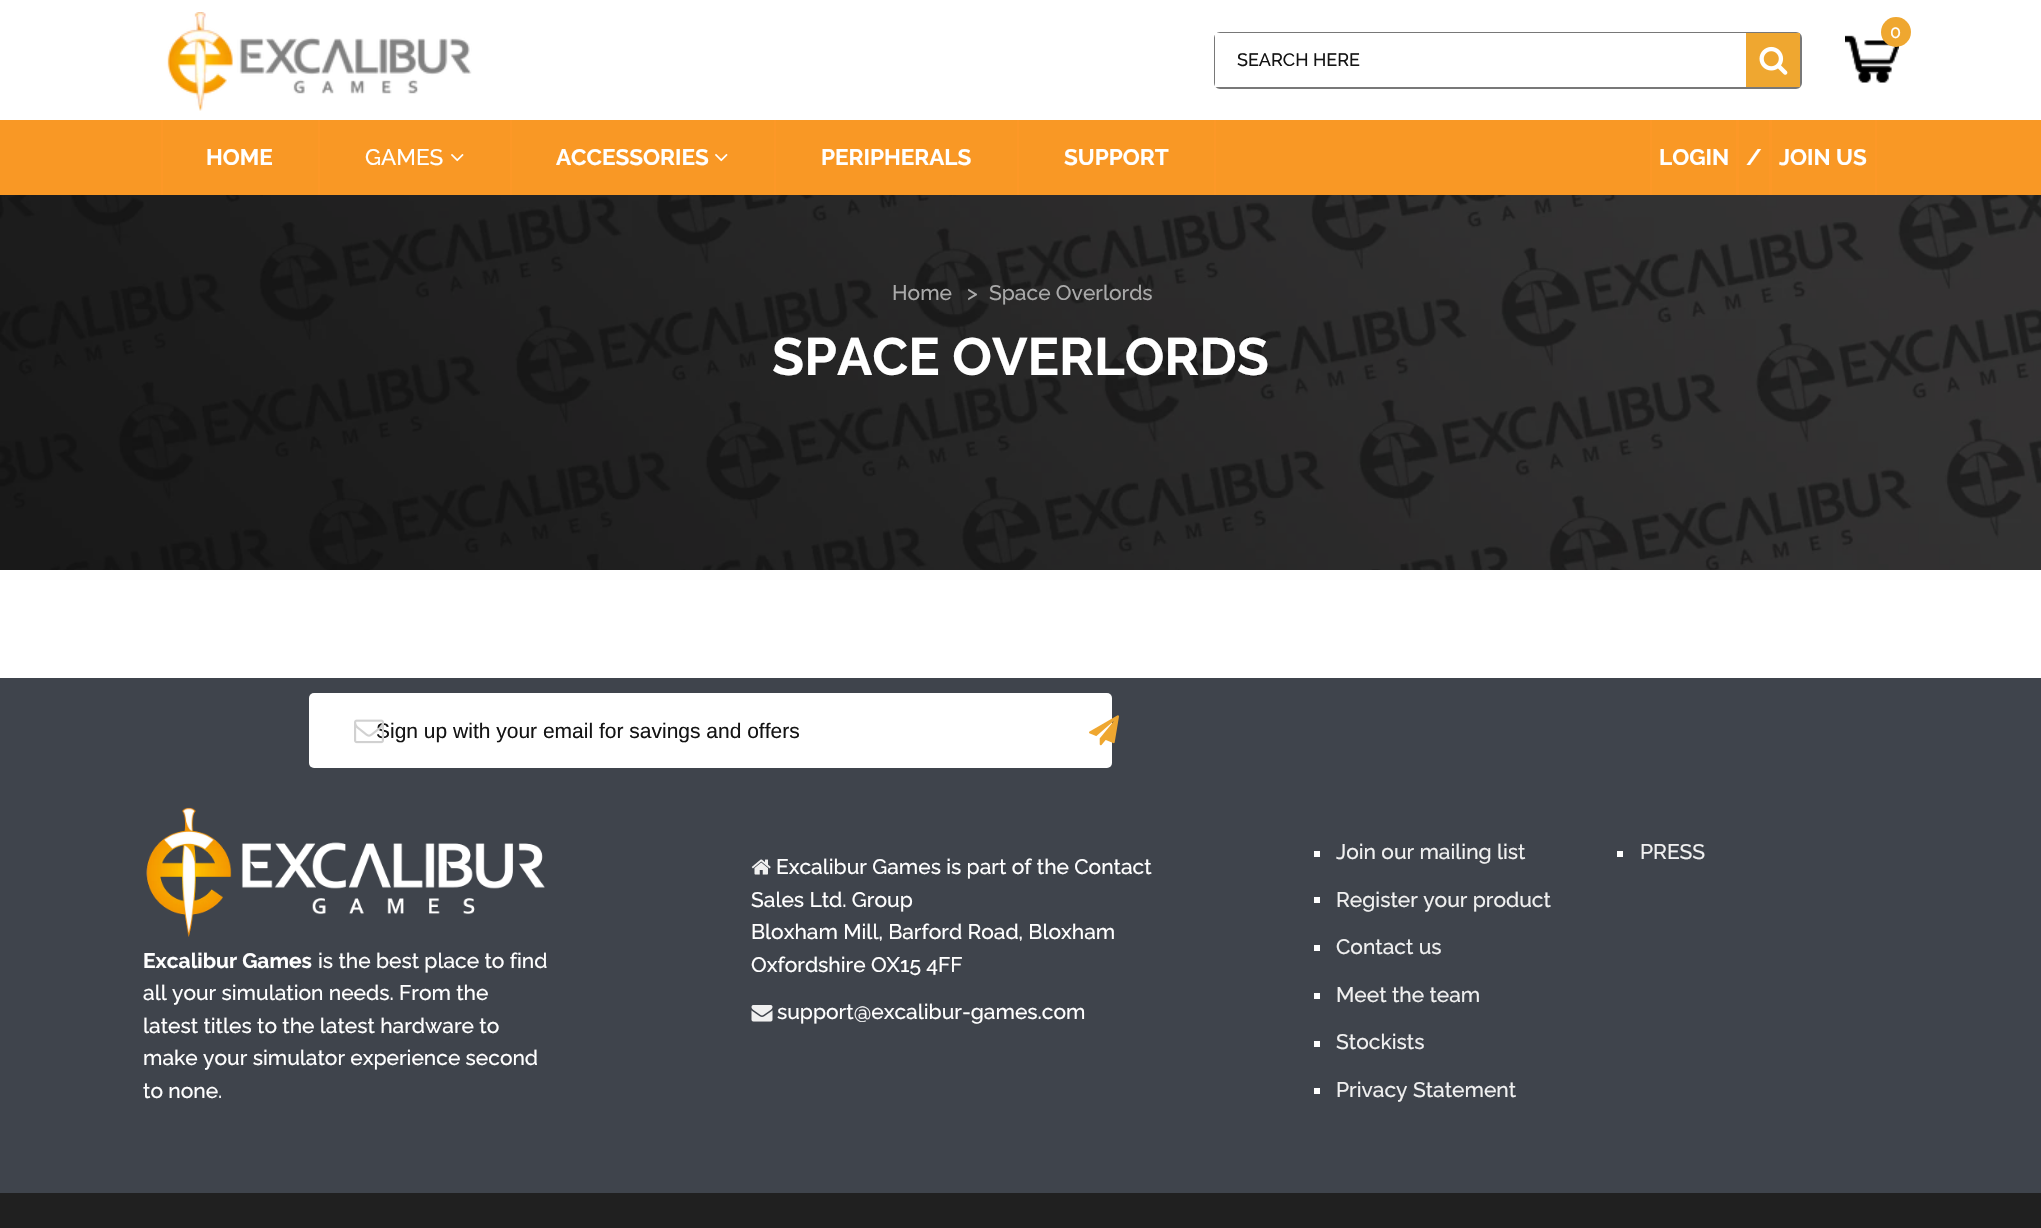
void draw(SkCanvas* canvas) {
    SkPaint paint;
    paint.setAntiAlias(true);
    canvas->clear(0xFFFFFFFF);
    canvas->drawImageRect(SkImages::DeferredFromEncodedData(SkData::MakeFromFileName("img1.png")), SkRect::MakeXYWH(167, 12, 305, 99), SkSamplingOptions());
    canvas->drawImageRect(SkImages::DeferredFromEncodedData(SkData::MakeFromFileName("img2.png")), SkRect::MakeXYWH(1845, 35, 54, 48), SkSamplingOptions());
    paint.setColor(0xFFEFA730);
    canvas->drawCircle(1896, 32, 15, paint);
    SkFont font1(fontMgr->matchFamilyStyle("Raleway", SkFontStyle(500, SkFontStyle::kNormal_Width, SkFontStyle::kUpright_Slant)), 18);
    font1.setSubpixel(true);
    paint.setColor(0xFFFFFFFF);
    canvas->drawString("0", 1890, 38, font1, paint);
    paint.setStyle(SkPaint::kStroke_Style);
    paint.setStrokeWidth(2);
    paint.setColor(0xFF787878);
    canvas->drawRoundRect(SkRect::MakeXYWH(1215, 33, 586, 55), 5, 5, paint);
    paint.setStyle(SkPaint::kFill_Style);
    paint.setColor(0xFFFFFFFF);
    canvas->drawRect(SkRect::MakeXYWH(1215, 33, 531, 54), paint);
    paint.setColor(0xFF141414);
    canvas->drawString("SEARCH HERE", 1237, 66, font1, paint);
    paint.setColor(0xFFEFA730);
    canvas->drawRect(SkRect::MakeXYWH(1746, 33, 54, 54), paint);
    canvas->drawImageRect(SkImages::DeferredFromEncodedData(SkData::MakeFromFileName("img3.png")), SkRect::MakeXYWH(1759, 46, 29, 29), SkSamplingOptions());
    paint.setColor(0xFFF99825);
    canvas->drawRect(SkRect::MakeXYWH(0, 120, 2041, 75), paint);
    paint.setColor(0xFFFD9827);
    canvas->drawRect(SkRect::MakeXYWH(318, 120, 2, 75), paint);
    canvas->drawRect(SkRect::MakeXYWH(161, 120, 2, 75), paint);
    SkFont font2(fontMgr->matchFamilyStyle("Raleway", SkFontStyle::Bold()), 22.5f);
    font2.setSubpixel(true);
    paint.setColor(0xFFFFFFFF);
    canvas->drawString("HOME", 206, 165, font2, paint);
    SkFont font3(fontMgr->matchFamilyStyle("Raleway", SkFontStyle(500, SkFontStyle::kNormal_Width, SkFontStyle::kUpright_Slant)), 22.5f);
    font3.setSubpixel(true);
    canvas->drawString("GAMES", 365, 165, font3, paint);
    canvas->drawImageRect(SkImages::DeferredFromEncodedData(SkData::MakeFromFileName("img4.png")), SkRect::MakeXYWH(451, 154, 13, 8), SkSamplingOptions());
    paint.setColor(0xFFFD9827);
    canvas->drawRect(SkRect::MakeXYWH(510, 120, 2, 75), paint);
    paint.setColor(0xFFFFFFFF);
    canvas->drawString("ACCESSORIES", 556, 165, font2, paint);
    canvas->drawImageRect(SkImages::DeferredFromEncodedData(SkData::MakeFromFileName("img4.png")), SkRect::MakeXYWH(715, 154, 13, 8), SkSamplingOptions());
    paint.setColor(0xFFFD9827);
    canvas->drawRect(SkRect::MakeXYWH(1017, 120, 2, 75), paint);
    canvas->drawRect(SkRect::MakeXYWH(774, 120, 2, 75), paint);
    paint.setColor(0xFFFFFFFF);
    canvas->drawString("PERIPHERALS", 821, 165, font2, paint);
    paint.setColor(0xFFFD9827);
    canvas->drawRect(SkRect::MakeXYWH(1214, 120, 2, 75), paint);
    paint.setColor(0xFFFFFFFF);
    canvas->drawString("SUPPORT", 1064, 165, font2, paint);
    paint.setColor(0xFFFD9827);
    canvas->drawRect(SkRect::MakeXYWH(1736, 120, 3, 75), paint);
    canvas->drawRect(SkRect::MakeXYWH(1650, 120, 2, 75), paint);
    paint.setColor(0xFFFFFFFF);
    canvas->drawString("LOGIN", 1659, 165, font2, paint);
    paint.setColor(0xFFFD9827);
    canvas->drawRect(SkRect::MakeXYWH(1769, 120, 3, 75), paint);
    paint.setColor(0xFFFFFFFF);
    canvas->drawString("/", 1746, 165, font2, paint);
    paint.setColor(0xFFFD9827);
    canvas->drawRect(SkRect::MakeXYWH(1875, 120, 2, 75), paint);
    paint.setColor(0xFFFFFFFF);
    canvas->drawString("JOIN US", 1779, 165, font2, paint);
    canvas->drawImageRect(SkImages::DeferredFromEncodedData(SkData::MakeFromFileName("img5.png")), SkRect::MakeXYWH(0, 195, 2041, 375), SkSamplingOptions());
    SkFont font4(fontMgr->matchFamilyStyle("Raleway", SkFontStyle(500, SkFontStyle::kNormal_Width, SkFontStyle::kUpright_Slant)), 21);
    font4.setSubpixel(true);
    paint.setColor(0xFFAAAAAA);
    canvas->drawString("Home", 892, 300, font4, paint);
    canvas->drawString(">", 967, 300, font4, paint);
    canvas->drawString("Space Overlords", 989, 300, font4, paint);
    SkFont font5(fontMgr->matchFamilyStyle("Raleway", SkFontStyle::Bold()), 52.5f);
    font5.setSubpixel(true);
    paint.setColor(0xFFFFFFFF);
    canvas->drawString("SPACE OVERLORDS", 772, 375, font5, paint);
    paint.setColor(0xFF3F444C);
    canvas->drawRect(SkRect::MakeXYWH(0, 678, 2041, 515), paint);
    paint.setColor(0xFFFFFFFF);
    canvas->drawRoundRect(SkRect::MakeXYWH(309, 693, 803, 75), 5, 5, paint);
    SkFont font6(fontMgr->matchFamilyStyle("Liberation Sans", SkFontStyle::Normal()), 21);
    font6.setSubpixel(true);
    paint.setColor(0xFF141414);
    canvas->drawString("Sign up with your email for savings and offers", 376, 738, font6, paint);
    canvas->drawImageRect(SkImages::DeferredFromEncodedData(SkData::MakeFromFileName("img6.png")), SkRect::MakeXYWH(354, 719, 30, 25), SkSamplingOptions());
    canvas->drawImageRect(SkImages::DeferredFromEncodedData(SkData::MakeFromFileName("img7.png")), SkRect::MakeXYWH(1089, 715, 30, 31), SkSamplingOptions());
    canvas->drawImageRect(SkImages::DeferredFromEncodedData(SkData::MakeFromFileName("img8.png")), SkRect::MakeXYWH(146, 807, 399, 130), SkSamplingOptions());
    SkFont font7(fontMgr->matchFamilyStyle("Raleway", SkFontStyle::Bold()), 21);
    font7.setSubpixel(true);
    paint.setColor(0xFFFFFFFF);
    canvas->drawString("Excalibur Games", 143, 968, font7, paint);
    canvas->drawString("is the best place to find", 318, 968, font4, paint);
    canvas->drawString("all your simulation needs. From the", 143, 1000, font4, paint);
    canvas->drawString("latest titles to the latest hardware to", 143, 1033, font4, paint);
    canvas->drawString("make your simulator experience second", 143, 1065, font4, paint);
    canvas->drawString("to none.", 143, 1098, font4, paint);
    canvas->drawImageRect(SkImages::DeferredFromEncodedData(SkData::MakeFromFileName("img9.png")), SkRect::MakeXYWH(751, 859, 20, 16), SkSamplingOptions());
    canvas->drawString("Excalibur Games is part of the Contact", 776, 874, font4, paint);
    canvas->drawString("Sales Ltd. Group", 751, 907, font4, paint);
    canvas->drawString("Bloxham Mill, Barford Road, Bloxham", 751, 939, font4, paint);
    canvas->drawString("Oxfordshire OX15 4FF", 751, 972, font4, paint);
    canvas->drawImageRect(SkImages::DeferredFromEncodedData(SkData::MakeFromFileName("img10.png")), SkRect::MakeXYWH(751, 1005, 22, 17), SkSamplingOptions());
    canvas->drawString("support@excalibur-games.com", 777, 1019, font4, paint);
    canvas->drawRect(SkRect::MakeXYWH(1314, 851, 6, 6), paint);
    paint.setColor(0xFFF0F0F0);
    canvas->drawString("Join our mailing list", 1336, 859, font4, paint);
    paint.setColor(0xFFFFFFFF);
    canvas->drawRect(SkRect::MakeXYWH(1314, 897, 6, 6), paint);
    paint.setColor(0xFFF0F0F0);
    canvas->drawString("Register your product", 1336, 907, font4, paint);
    paint.setColor(0xFFFFFFFF);
    canvas->drawRect(SkRect::MakeXYWH(1314, 945, 6, 6), paint);
    paint.setColor(0xFFF0F0F0);
    canvas->drawString("Contact us", 1336, 954, font4, paint);
    paint.setColor(0xFFFFFFFF);
    canvas->drawRect(SkRect::MakeXYWH(1314, 993, 6, 6), paint);
    paint.setColor(0xFFF0F0F0);
    canvas->drawString("Meet the team", 1336, 1002, font4, paint);
    paint.setColor(0xFFFFFFFF);
    canvas->drawRect(SkRect::MakeXYWH(1314, 1041, 6, 6), paint);
    paint.setColor(0xFFF0F0F0);
    canvas->drawString("Stockists", 1336, 1049, font4, paint);
    paint.setColor(0xFFFFFFFF);
    canvas->drawRect(SkRect::MakeXYWH(1314, 1088, 6, 6), paint);
    paint.setColor(0xFFF0F0F0);
    canvas->drawString("Privacy Statement", 1336, 1097, font4, paint);
    paint.setColor(0xFFFFFFFF);
    canvas->drawRect(SkRect::MakeXYWH(1617, 851, 6, 6), paint);
    paint.setColor(0xFFF0F0F0);
    canvas->drawString("PRESS", 1640, 859, font4, paint);
    paint.setColor(0xFF202020);
    canvas->drawRect(SkRect::MakeXYWH(0, 1193, 2041, 35), paint);
}
